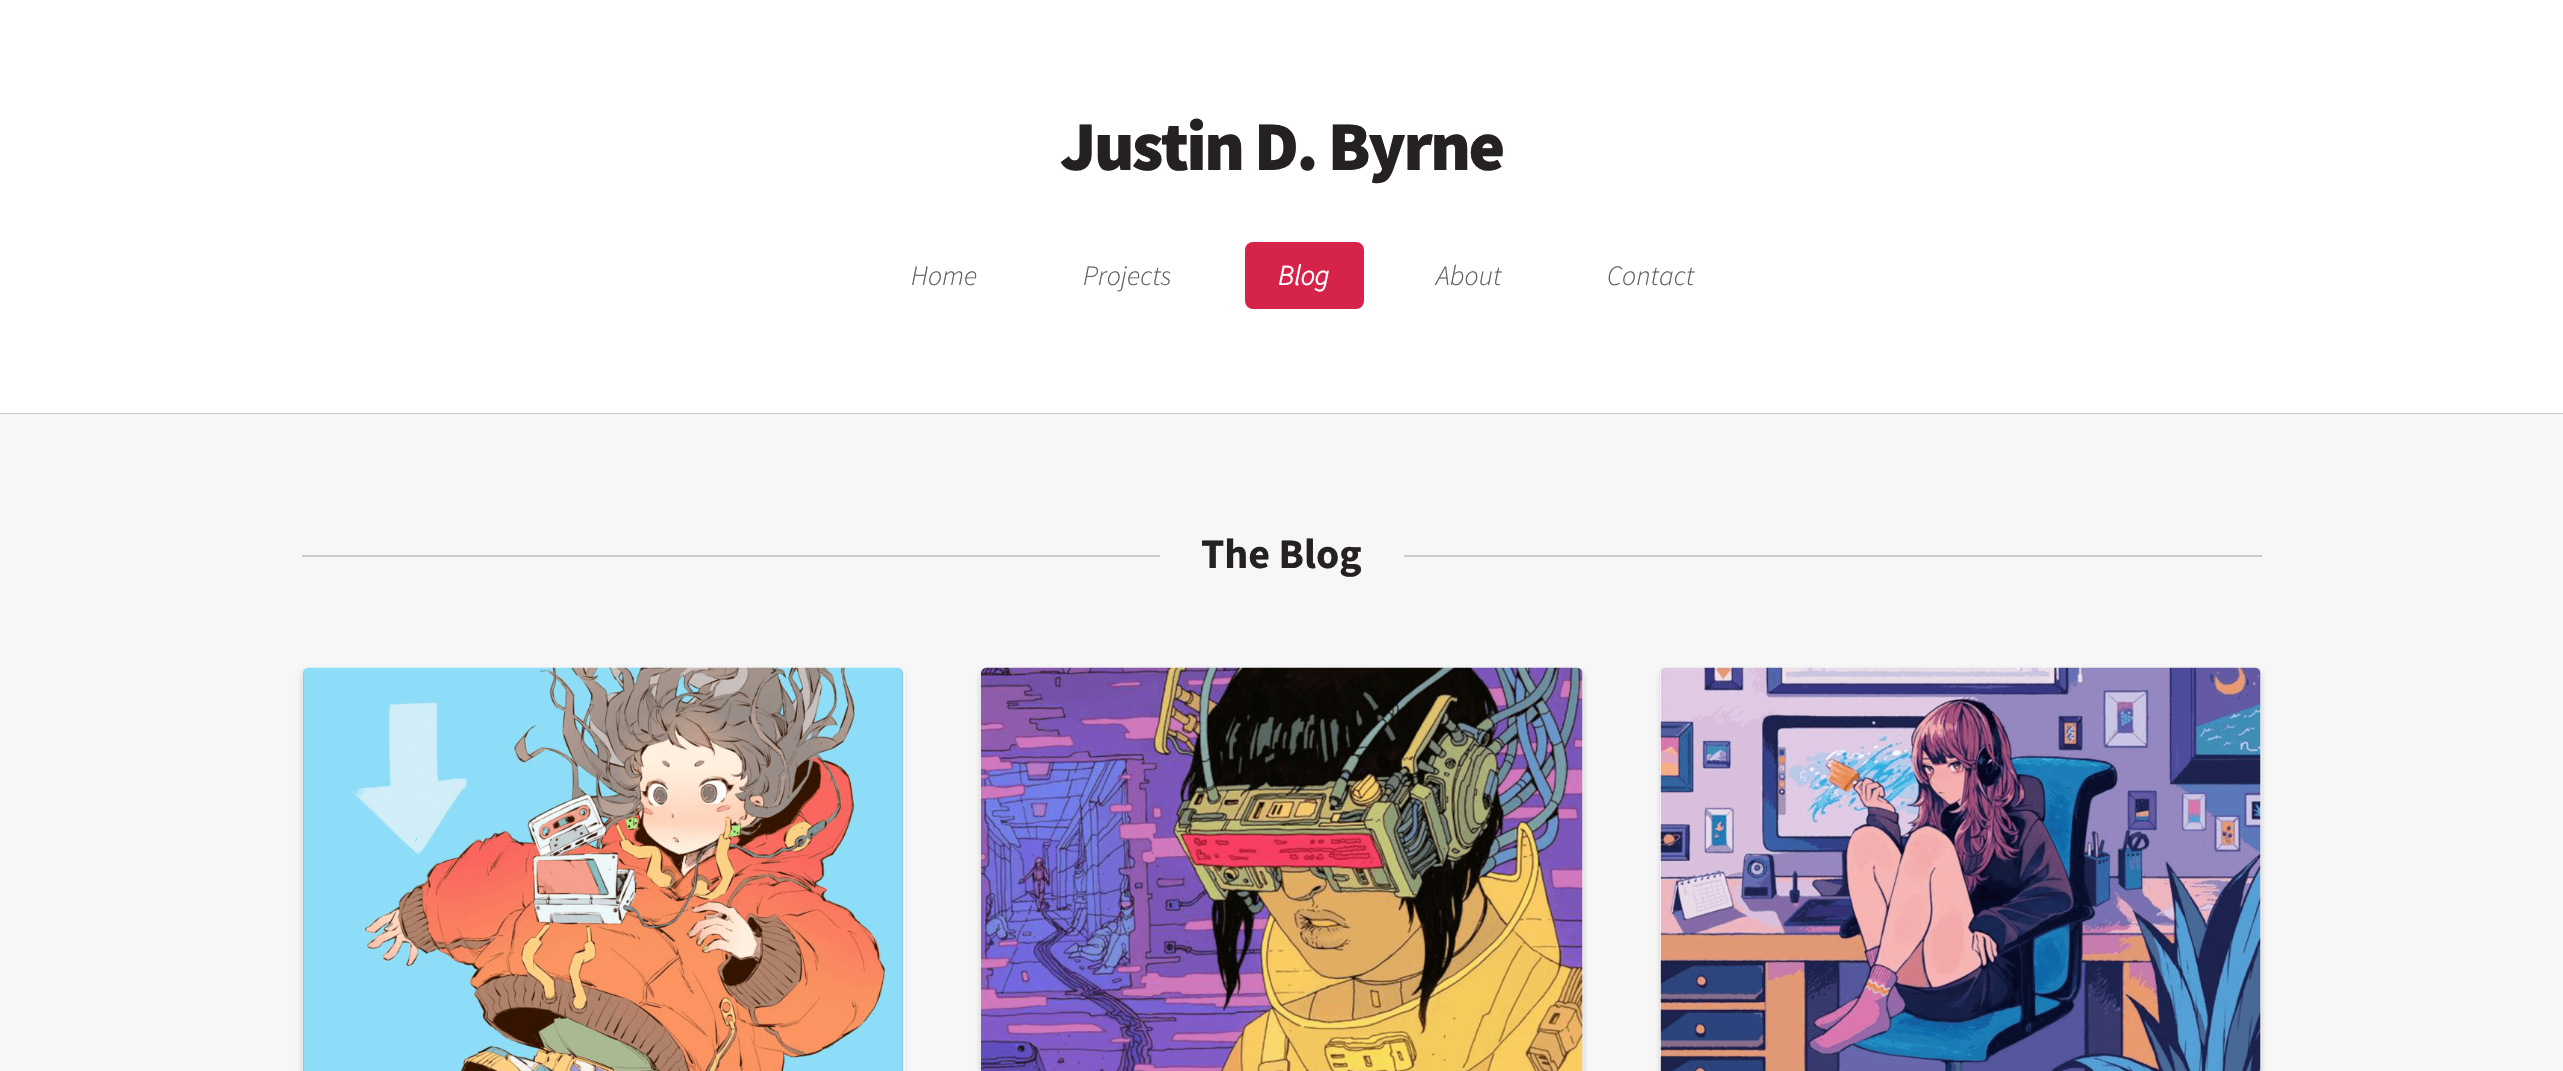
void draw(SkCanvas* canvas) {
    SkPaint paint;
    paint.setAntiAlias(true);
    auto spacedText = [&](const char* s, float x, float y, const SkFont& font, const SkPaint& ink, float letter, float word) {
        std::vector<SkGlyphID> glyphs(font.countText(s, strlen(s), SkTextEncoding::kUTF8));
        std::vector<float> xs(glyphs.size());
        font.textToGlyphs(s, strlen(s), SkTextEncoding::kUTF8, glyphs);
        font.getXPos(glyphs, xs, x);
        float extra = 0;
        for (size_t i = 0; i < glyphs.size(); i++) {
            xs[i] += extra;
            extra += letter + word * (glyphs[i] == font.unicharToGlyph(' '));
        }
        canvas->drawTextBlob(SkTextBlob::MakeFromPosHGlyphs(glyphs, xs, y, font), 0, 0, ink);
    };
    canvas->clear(0xFFFFFFFF);
    paint.setColor(0xFFCCCCCC);
    canvas->drawRect(SkRect::MakeXYWH(0, 413, 2563, 1), paint);
    SkFont font1(fontMgr->matchFamilyStyle("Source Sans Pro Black", SkFontStyle(900, SkFontStyle::kNormal_Width, SkFontStyle::kUpright_Slant)), 70);
    font1.setSubpixel(true);
    paint.setColor(0xFF252122);
    spacedText("Justin D. Byrne", 1060, 170, font1, paint, -2.5f, 0);
    SkFont font2(fontMgr->matchFamilyStyle("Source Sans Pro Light", SkFontStyle(300, SkFontStyle::kNormal_Width, SkFontStyle::kItalic_Slant)), 28);
    font2.setSubpixel(true);
    paint.setColor(0xFF5D5D5D);
    canvas->drawString("Home", 911, 285, font2, paint);
    canvas->drawString("Projects", 1083, 285, font2, paint);
    paint.setColor(0xFFD52349);
    canvas->drawRoundRect(SkRect::MakeXYWH(1245, 242, 119, 67), 8, 8, paint);
    SkFont font3(fontMgr->matchFamilyStyle("Source Sans Pro Light", SkFontStyle::BoldItalic()), 28);
    font3.setSubpixel(true);
    paint.setColor(0xFFFFFFFF);
    canvas->drawString("Blog", 1278, 285, font3, paint);
    paint.setColor(0xFF5D5D5D);
    canvas->drawString("About", 1436, 285, font2, paint);
    canvas->drawString("Contact", 1607, 285, font2, paint);
    paint.setColor(0xFFF7F7F7);
    canvas->drawRect(SkRect::MakeXYWH(0, 414, 2563, 657), paint);
    paint.setColor(0xFFCCCCCC);
    canvas->drawRect(SkRect::MakeXYWH(302, 555, 1960, 2), paint);
    paint.setColor(0xFFF7F7F7);
    canvas->drawRect(SkRect::MakeXYWH(1160, 555, 244, 2), paint);
    SkFont font4(fontMgr->matchFamilyStyle("Source Sans Pro", SkFontStyle::Bold()), 42);
    font4.setSubpixel(true);
    paint.setColor(0xFF252122);
    canvas->drawString("The Blog", 1201, 568, font4, paint);
    paint.setColor(0x33000000);
    paint.setMaskFilter(SkMaskFilter::MakeBlur(kNormal_SkBlurStyle, 3));
    canvas->drawRoundRect(SkRect::MakeXYWH(303, 672, 600, 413), 5, 5, paint);
    paint.setMaskFilter(nullptr);
    paint.setColor(0xFFFFFFFF);
    canvas->drawRoundRect(SkRect::MakeXYWH(302, 668, 603, 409), 6, 6, paint);
    paint.setColor(0xFFE8E8E8);
    canvas->drawPath(SkPathBuilder().moveTo(903, 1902).cubicTo(904, 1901, 904, 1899, 904, 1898).lineTo(904, 674).cubicTo(904, 670, 902, 668, 898, 668).cubicTo(901, 668, 903, 671, 903, 674).lineTo(903, 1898).lineTo(902, 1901).close().detach(), paint);
    canvas->drawPath(SkPathBuilder().moveTo(308, 668).cubicTo(305, 668, 303, 671, 303, 674).lineTo(303, 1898).lineTo(304, 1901).lineTo(303, 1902).cubicTo(302, 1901, 302, 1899, 302, 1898).lineTo(302, 674).cubicTo(302, 670, 304, 668, 308, 668).close().detach(), paint);
    canvas->drawImageRect(SkImages::DeferredFromEncodedData(SkData::MakeFromFileName("img1.png")), SkRect::MakeXYWH(303, 667, 600, 404), SkSamplingOptions());
    paint.setColor(0x33000000);
    paint.setMaskFilter(SkMaskFilter::MakeBlur(kNormal_SkBlurStyle, 3));
    canvas->drawRoundRect(SkRect::MakeXYWH(981, 672, 602, 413), 5, 5, paint);
    paint.setMaskFilter(nullptr);
    paint.setColor(0xFFE8E8E8);
    canvas->drawPath(SkPathBuilder().moveTo(1584, 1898).lineTo(1584, 674).cubicTo(1584, 670, 1581, 668, 1578, 668).cubicTo(1580, 668, 1582, 670, 1582, 674).lineTo(1582, 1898).lineTo(1581, 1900).lineTo(1582, 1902).cubicTo(1583, 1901, 1584, 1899, 1584, 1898).close().detach(), paint);
    canvas->drawPath(SkPathBuilder().moveTo(986, 668).cubicTo(983, 668, 981, 671, 981, 674).lineTo(981, 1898).lineTo(982, 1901).lineTo(981, 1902).cubicTo(980, 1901, 980, 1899, 980, 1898).lineTo(980, 674).cubicTo(980, 670, 982, 668, 986, 668).close().detach(), paint);
    canvas->drawImageRect(SkImages::DeferredFromEncodedData(SkData::MakeFromFileName("img2.png")), SkRect::MakeXYWH(981, 667, 602, 404), SkSamplingOptions());
    paint.setColor(0x33000000);
    paint.setMaskFilter(SkMaskFilter::MakeBlur(kNormal_SkBlurStyle, 3));
    canvas->drawRoundRect(SkRect::MakeXYWH(1661, 672, 600, 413), 5, 5, paint);
    paint.setMaskFilter(nullptr);
    paint.setColor(0xFFFFFFFF);
    canvas->drawRoundRect(SkRect::MakeXYWH(1659, 668, 603, 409), 6, 6, paint);
    paint.setColor(0xFFE8E8E8);
    canvas->drawPath(SkPathBuilder().moveTo(2262, 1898).lineTo(2262, 674).cubicTo(2262, 670, 2259, 668, 2256, 668).cubicTo(2258, 668, 2260, 670, 2260, 674).lineTo(2260, 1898).lineTo(2259, 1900).lineTo(2260, 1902).cubicTo(2261, 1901, 2262, 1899, 2262, 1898).close().detach(), paint);
    canvas->drawPath(SkPathBuilder().moveTo(1665, 668).cubicTo(1663, 668, 1660, 670, 1660, 674).lineTo(1660, 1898).cubicTo(1660, 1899, 1661, 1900, 1662, 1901).lineTo(1661, 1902).cubicTo(1660, 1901, 1659, 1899, 1659, 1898).lineTo(1659, 674).cubicTo(1659, 670, 1662, 668, 1665, 668).close().detach(), paint);
    canvas->drawImageRect(SkImages::DeferredFromEncodedData(SkData::MakeFromFileName("img3.png")), SkRect::MakeXYWH(1660, 667, 601, 404), SkSamplingOptions());
}
